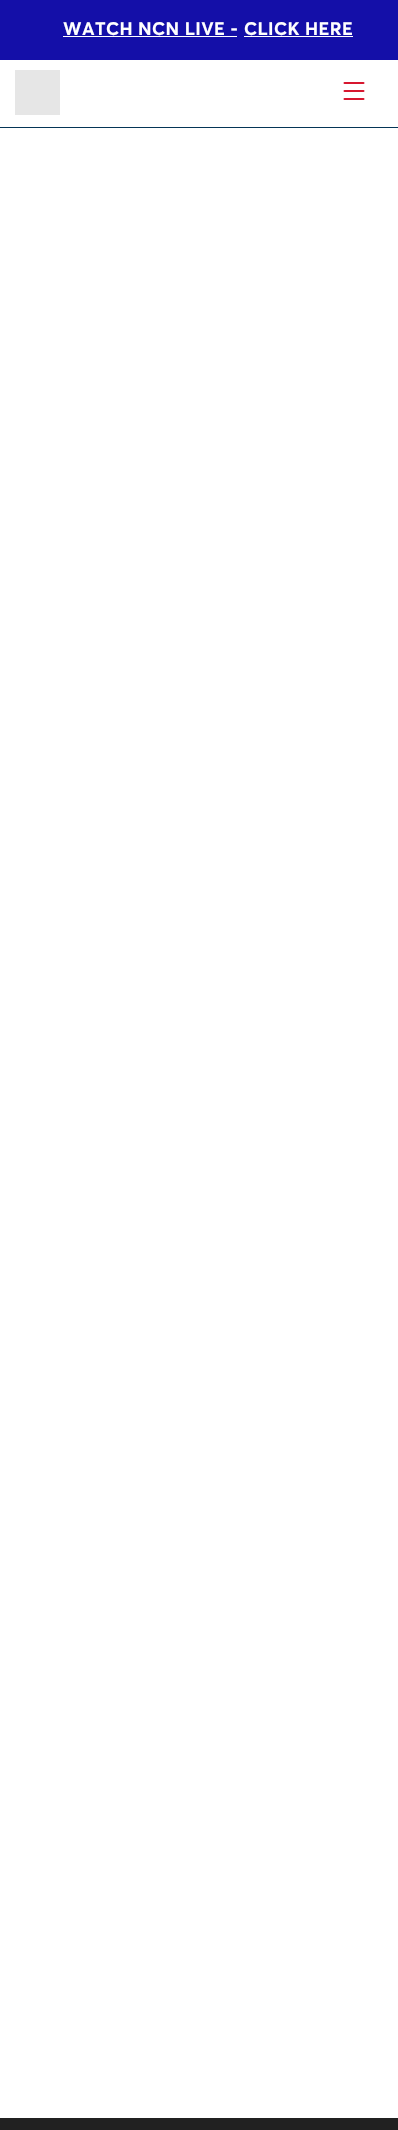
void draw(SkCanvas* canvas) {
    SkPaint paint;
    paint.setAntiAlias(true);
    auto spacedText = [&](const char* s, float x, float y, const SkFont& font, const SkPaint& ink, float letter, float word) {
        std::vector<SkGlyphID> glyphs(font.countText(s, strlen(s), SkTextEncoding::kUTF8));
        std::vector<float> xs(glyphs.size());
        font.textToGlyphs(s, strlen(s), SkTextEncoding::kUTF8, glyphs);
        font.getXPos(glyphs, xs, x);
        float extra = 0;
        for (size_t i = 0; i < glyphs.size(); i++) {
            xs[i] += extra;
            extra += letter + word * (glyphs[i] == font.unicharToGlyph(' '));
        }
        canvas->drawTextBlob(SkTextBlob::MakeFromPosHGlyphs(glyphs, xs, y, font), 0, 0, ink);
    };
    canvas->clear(0xFFFFFFFF);
    paint.setColor(0xFF140FA8);
    canvas->drawRect(SkRect::MakeXYWH(0, 0, 398, 60), paint);
    SkFont font1(fontMgr->matchFamilyStyle("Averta", SkFontStyle::Bold()), 18);
    font1.setSubpixel(true);
    paint.setColor(0xFFFFFFFF);
    spacedText("WATCH NCN LIVE -", 63, 35, font1, paint, 0.4f, 0);
    canvas->drawRect(SkRect::MakeXYWH(63, 36, 174, 1), paint);
    spacedText("CLICK HERE", 244, 35, font1, paint, 0.4f, 0);
    canvas->drawRect(SkRect::MakeXYWH(244, 36, 109, 1), paint);
    paint.setColor(0xFF043556);
    canvas->drawRect(SkRect::MakeXYWH(0, 127, 398, 1), paint);
    paint.setColor(0xFFE6E6E6);
    canvas->drawRect(SkRect::MakeXYWH(15, 70, 45, 45), paint);
    paint.setStyle(SkPaint::kStroke_Style);
    paint.setStrokeWidth(2);
    paint.setStrokeCap(SkPaint::kRound_Cap);
    paint.setColor(0xFFD7172F);
    canvas->drawPath(SkPathBuilder().moveTo(344.5f, 91).lineTo(363.5f, 91).moveTo(344.5f, 83).lineTo(363.5f, 83).moveTo(344.5f, 99).lineTo(363.5f, 99).detach(), paint);
    paint.setStyle(SkPaint::kFill_Style);
    paint.setColor(0xFF212121);
    canvas->drawRect(SkRect::MakeXYWH(0, 2118, 398, 12), paint);
}
